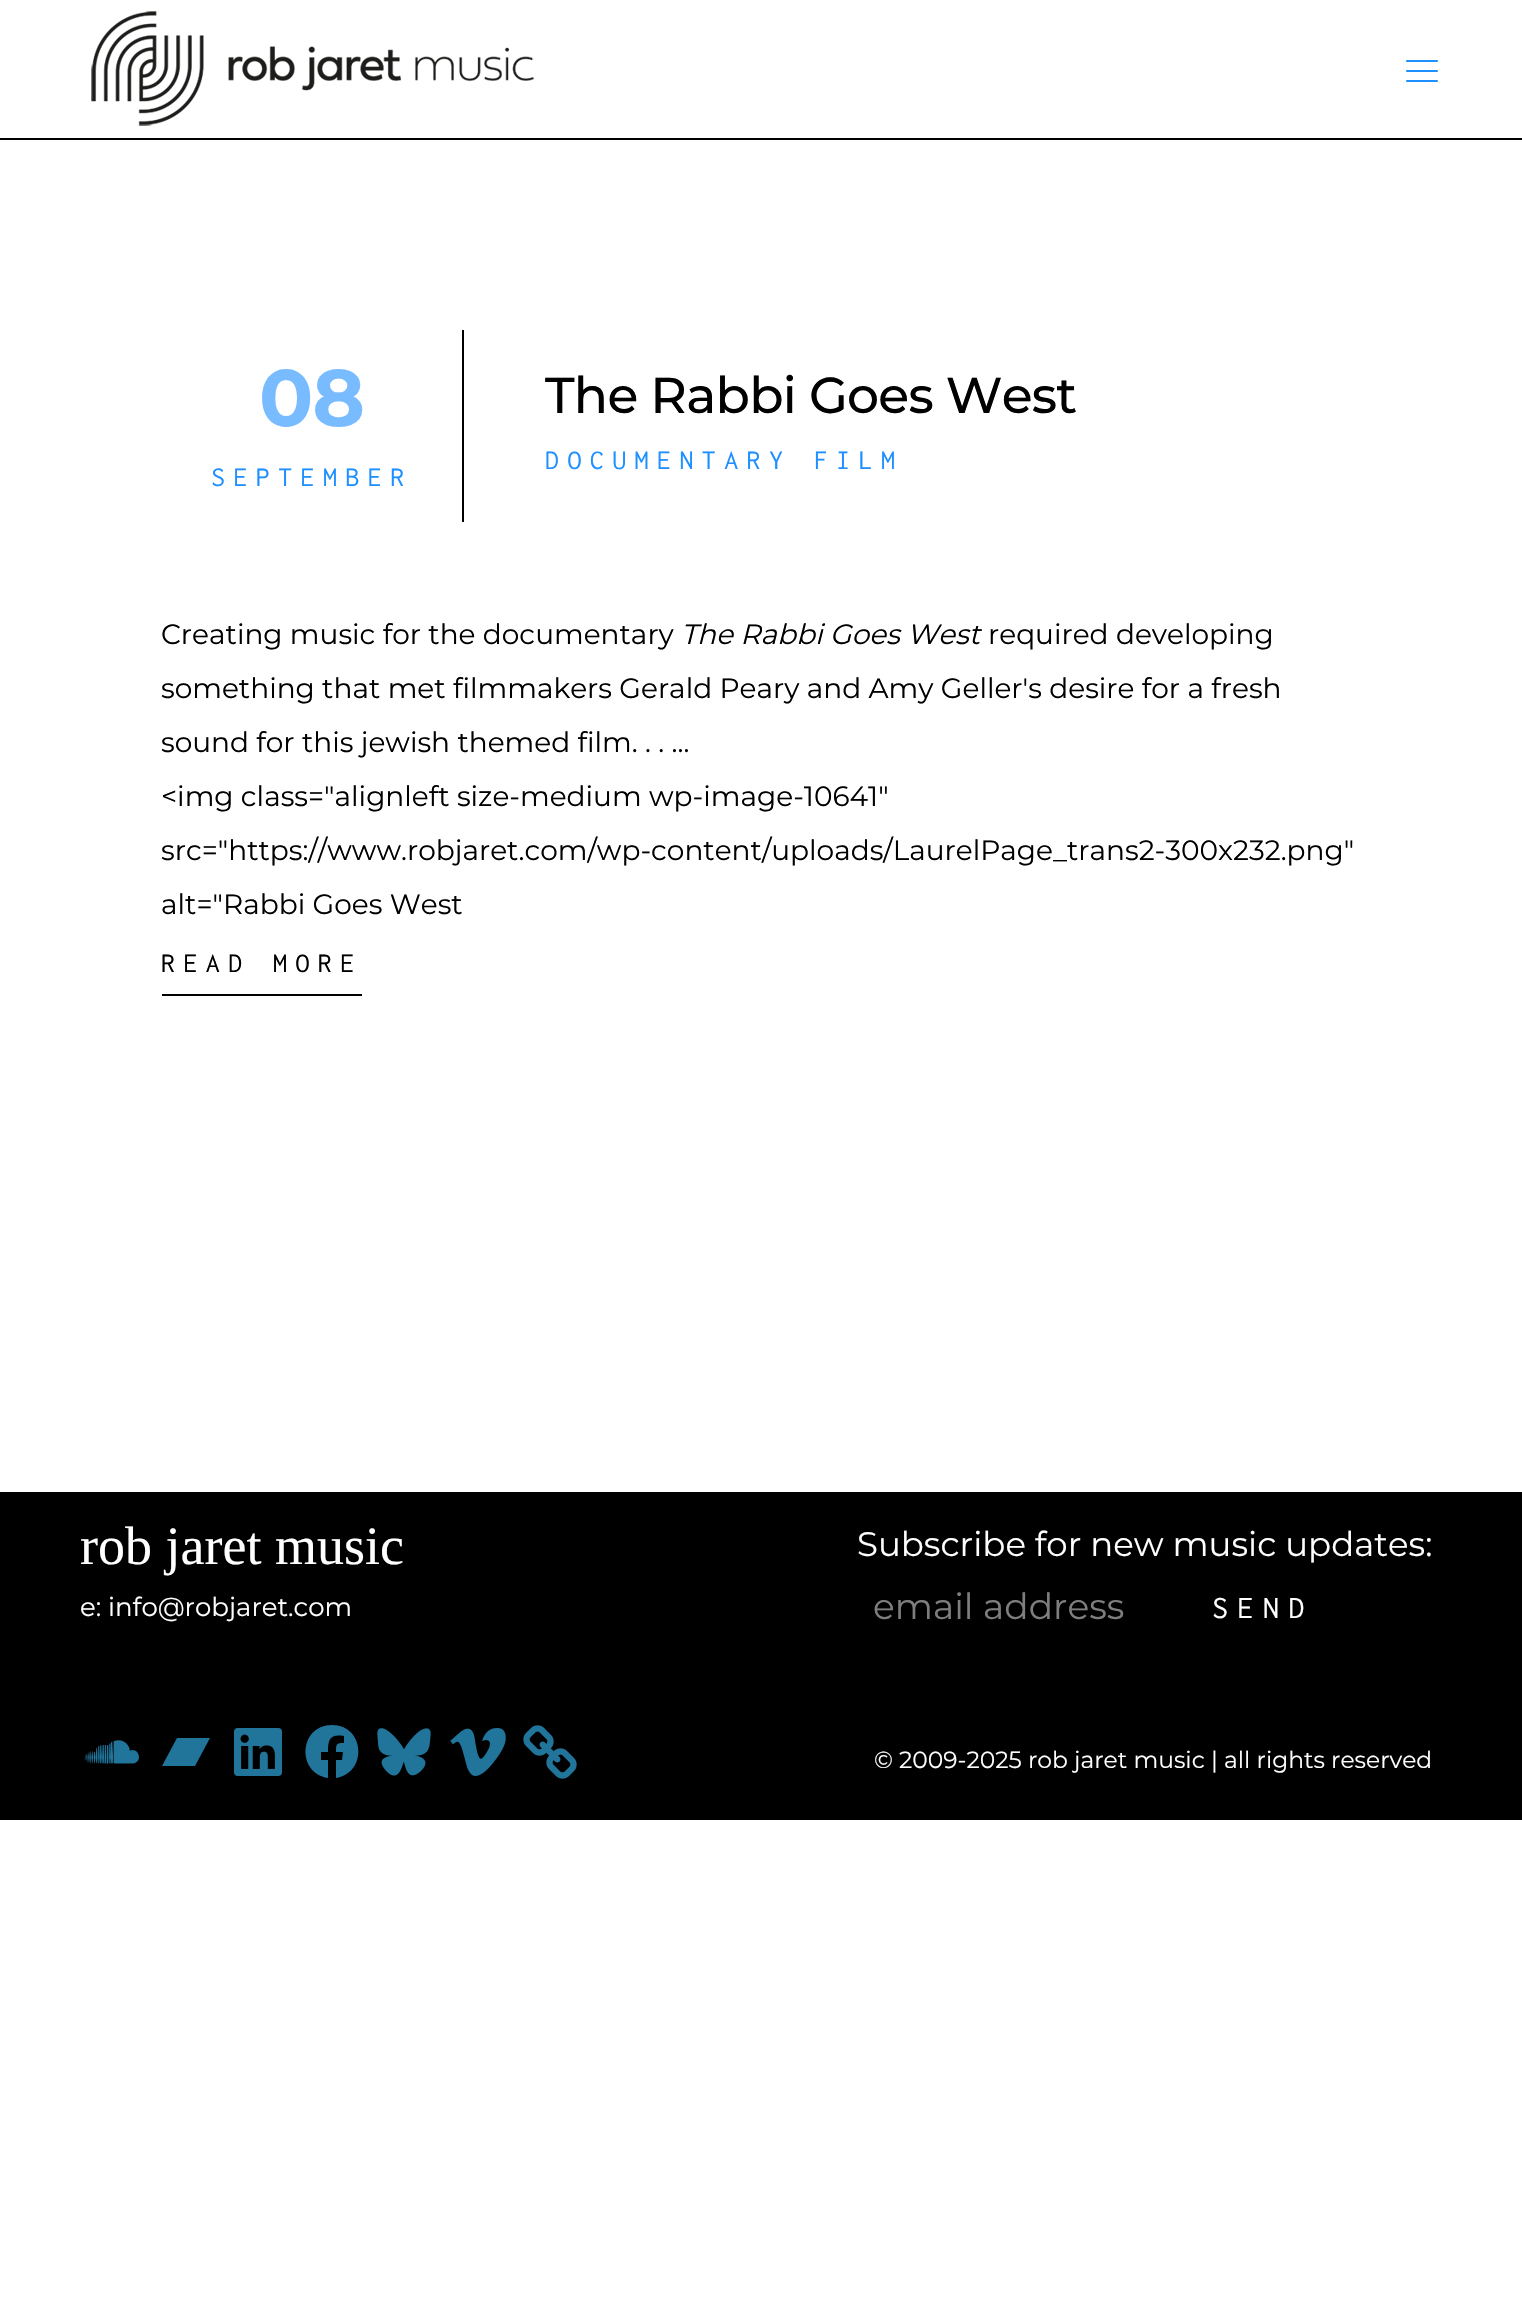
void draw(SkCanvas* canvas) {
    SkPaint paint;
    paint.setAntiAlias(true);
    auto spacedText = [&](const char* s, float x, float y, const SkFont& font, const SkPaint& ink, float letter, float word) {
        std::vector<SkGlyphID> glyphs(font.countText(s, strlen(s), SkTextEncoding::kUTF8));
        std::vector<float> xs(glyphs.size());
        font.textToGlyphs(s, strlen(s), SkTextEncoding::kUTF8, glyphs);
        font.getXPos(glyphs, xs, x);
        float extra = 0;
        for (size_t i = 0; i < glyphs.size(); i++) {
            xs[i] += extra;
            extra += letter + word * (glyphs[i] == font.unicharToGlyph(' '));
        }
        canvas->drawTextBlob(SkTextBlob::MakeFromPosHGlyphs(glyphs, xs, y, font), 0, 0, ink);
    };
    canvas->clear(0xFFFFFFFF);
    paint.setColor(0xFF000000);
    canvas->drawRect(SkRect::MakeXYWH(0, 138, 1522, 2), paint);
    canvas->drawImageRect(SkImages::DeferredFromEncodedData(SkData::MakeFromFileName("img1.png")), SkRect::MakeXYWH(91, 11, 443, 115), SkSamplingOptions());
    canvas->drawImageRect(SkImages::DeferredFromEncodedData(SkData::MakeFromFileName("img2.png")), SkRect::MakeXYWH(1406, 60, 32, 22), SkSamplingOptions());
    canvas->drawRect(SkRect::MakeXYWH(462, 330, 2, 192), paint);
    SkFont font1(fontMgr->matchFamilyStyle("Montserrat", SkFontStyle::Bold()), 80);
    font1.setSubpixel(true);
    paint.setColor(0xFF78BCFF);
    spacedText("08", 259, 426, font1, paint, -1, 0);
    SkFont font2(fontMgr->matchFamilyStyle("Inconsolata", SkFontStyle::Normal()), 28);
    font2.setSubpixel(true);
    paint.setColor(0xFF1E90FF);
    spacedText("SEPTEMBER", 211, 486, font2, paint, 8.4f, 0);
    SkFont font3(fontMgr->matchFamilyStyle("Montserrat", SkFontStyle(500, SkFontStyle::kNormal_Width, SkFontStyle::kUpright_Slant)), 50.4f);
    font3.setSubpixel(true);
    paint.setColor(0xFF000000);
    spacedText("The Rabbi Goes West", 545, 413, font3, paint, -0.75f, 0);
    paint.setColor(0xFF1E90FF);
    spacedText("DOCUMENTARY FILM", 545, 469, font2, paint, 8.4f, 0);
    SkFont font4(fontMgr->matchFamilyStyle("Montserrat", SkFontStyle::Normal()), 28);
    font4.setSubpixel(true);
    paint.setColor(0xFF000000);
    canvas->drawString("Creating music for the documentary", 161, 644, font4, paint);
    SkFont font5(fontMgr->matchFamilyStyle("Montserrat", SkFontStyle::Italic()), 28);
    font5.setSubpixel(true);
    canvas->drawString("The Rabbi Goes West", 681, 644, font5, paint);
    canvas->drawString("required developing", 988, 644, font4, paint);
    canvas->drawString("something that met filmmakers Gerald Peary and Amy Geller's desire for a fresh", 161, 698, font4, paint);
    canvas->drawString("sound for this jewish themed film. . . ...", 161, 752, font4, paint);
    canvas->drawString("<img class=\"alignleft size-medium wp-image-10641\"", 161, 806, font4, paint);
    canvas->drawString("src=\"https://www.robjaret.com/wp-content/uploads/LaurelPage_trans2-300x232.png\"", 161, 860, font4, paint);
    canvas->drawString("alt=\"Rabbi Goes West", 161, 914, font4, paint);
    spacedText("READ MORE", 161, 972, font2, paint, 8.4f, 0);
    canvas->drawRect(SkRect::MakeXYWH(162, 994, 200, 2), paint);
    canvas->drawRect(SkRect::MakeXYWH(0, 1492, 1522, 328), paint);
    SkFont font6(fontMgr->matchFamilyStyle("Liberation Serif", SkFontStyle::Normal()), 54);
    font6.setSubpixel(true);
    paint.setColor(0xFFFFFFFF);
    canvas->drawString("rob jaret music", 80, 1564, font6, paint);
    SkFont font7(fontMgr->matchFamilyStyle("Montserrat", SkFontStyle::Normal()), 26);
    font7.setSubpixel(true);
    canvas->drawString("e: info@robjaret.com", 80, 1616, font7, paint);
    canvas->drawImageRect(SkImages::DeferredFromEncodedData(SkData::MakeFromFileName("img3.png")), SkRect::MakeXYWH(85, 1740, 54, 24), SkSamplingOptions());
    paint.setColor(0xFF21759B);
    canvas->drawPath(SkPathBuilder().moveTo(195, 1766).lineTo(162, 1766).lineTo(177, 1738).lineTo(210, 1738).lineTo(195, 1766).detach(), paint);
    canvas->drawImageRect(SkImages::DeferredFromEncodedData(SkData::MakeFromFileName("img4.png")), SkRect::MakeXYWH(234, 1728, 48, 48), SkSamplingOptions());
    canvas->drawPath(SkPathBuilder().moveTo(332, 1725).cubicTo(299, 1725, 296, 1773, 328, 1778).lineTo(328, 1760).lineTo(321, 1760).lineTo(321, 1752).lineTo(328, 1752).cubicTo(328, 1739, 330, 1734, 344, 1736).lineTo(344, 1743).cubicTo(336, 1743, 336, 1744, 336, 1752).lineTo(343, 1752).lineTo(342, 1760).lineTo(336, 1760).lineTo(336, 1778).cubicTo(368, 1773, 365, 1725, 332, 1725).close().detach(), paint);
    canvas->drawImageRect(SkImages::DeferredFromEncodedData(SkData::MakeFromFileName("img5.png")), SkRect::MakeXYWH(377, 1728, 54, 48), SkSamplingOptions());
    canvas->drawImageRect(SkImages::DeferredFromEncodedData(SkData::MakeFromFileName("img6.png")), SkRect::MakeXYWH(450, 1728, 56, 48), SkSamplingOptions());
    canvas->drawImageRect(SkImages::DeferredFromEncodedData(SkData::MakeFromFileName("img7.png")), SkRect::MakeXYWH(523, 1725, 54, 54), SkSamplingOptions());
    SkFont font8(fontMgr->matchFamilyStyle("Montserrat", SkFontStyle::Normal()), 34);
    font8.setSubpixel(true);
    paint.setColor(0xFFFFFFFF);
    canvas->drawString("Subscribe for new music updates:", 857, 1556, font8, paint);
    SkFont font9(fontMgr->matchFamilyStyle("Montserrat", SkFontStyle::Normal()), 36);
    font9.setSubpixel(true);
    paint.setColor(0xFF7E7E7E);
    canvas->drawString("email address", 873, 1619, font9, paint);
    SkFont font10(fontMgr->matchFamilyStyle("Inconsolata", SkFontStyle::Normal()), 32);
    font10.setSubpixel(true);
    paint.setColor(0xFFFFFFFF);
    spacedText("SEND", 1212, 1618, font10, paint, 9.5f, 0);
    SkFont font11(fontMgr->matchFamilyStyle("Montserrat", SkFontStyle::Normal()), 23.4f);
    font11.setSubpixel(true);
    canvas->drawString("© 2009-2025 rob jaret music | all rights reserved", 874, 1768, font11, paint);
}
